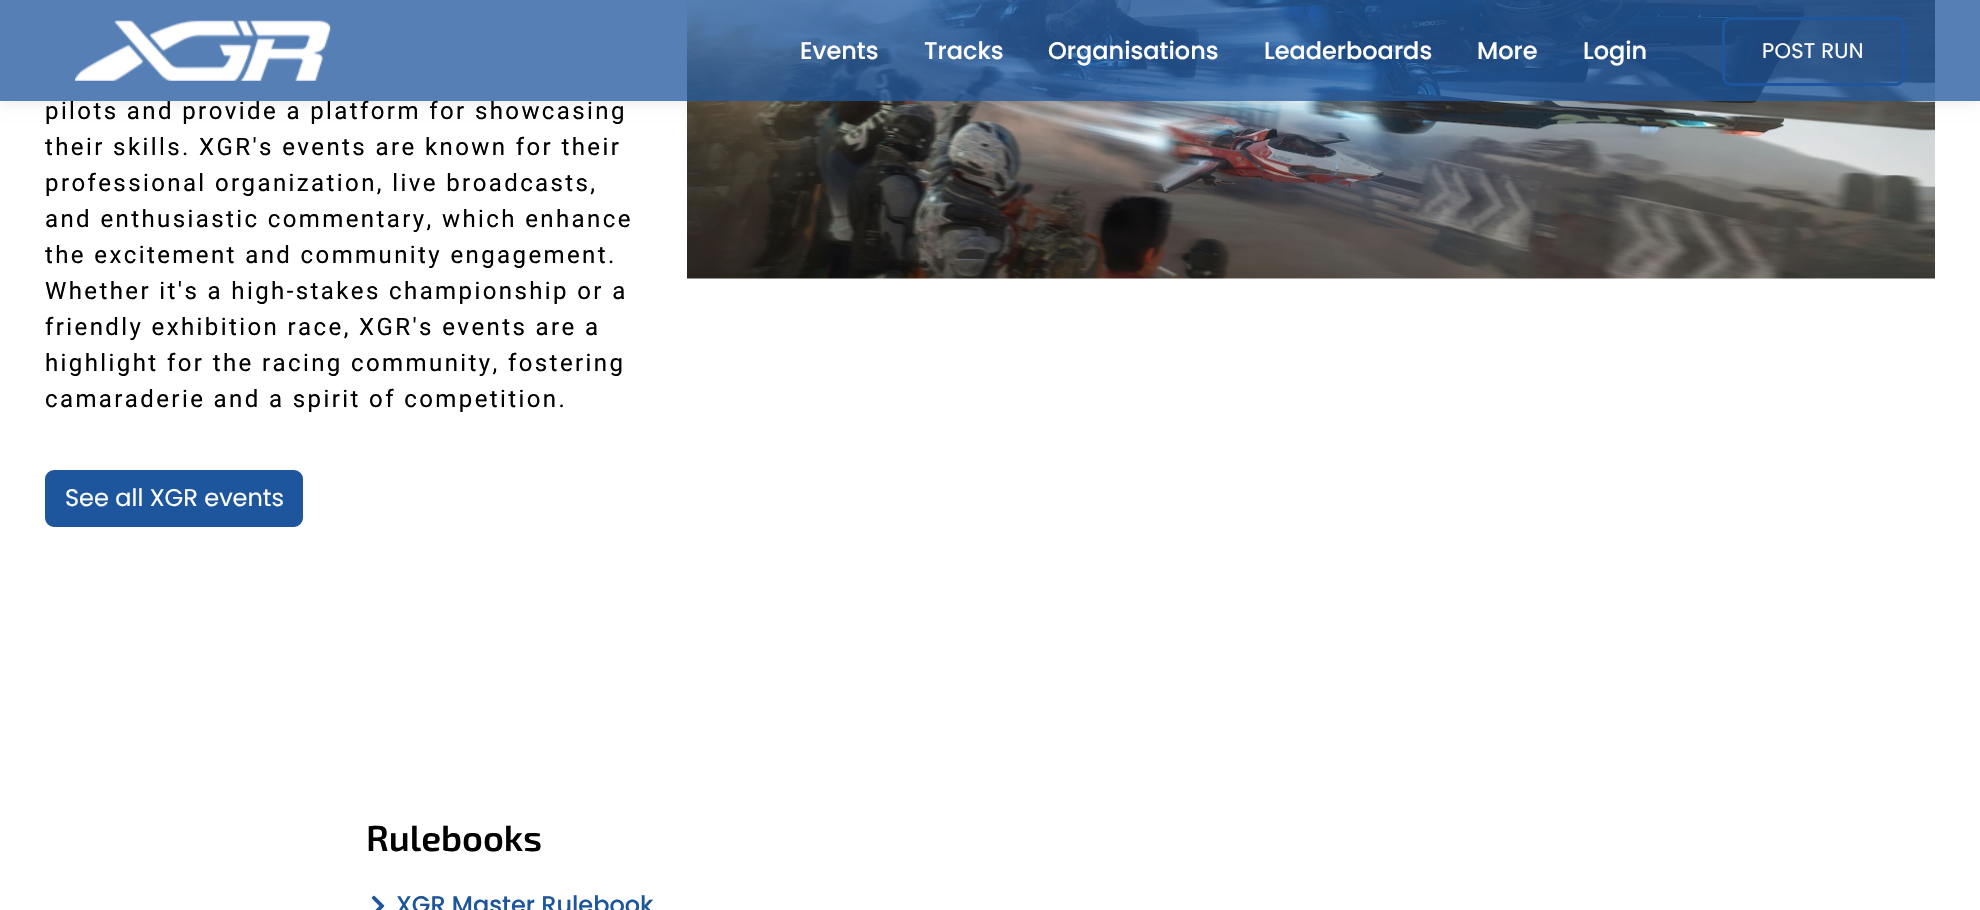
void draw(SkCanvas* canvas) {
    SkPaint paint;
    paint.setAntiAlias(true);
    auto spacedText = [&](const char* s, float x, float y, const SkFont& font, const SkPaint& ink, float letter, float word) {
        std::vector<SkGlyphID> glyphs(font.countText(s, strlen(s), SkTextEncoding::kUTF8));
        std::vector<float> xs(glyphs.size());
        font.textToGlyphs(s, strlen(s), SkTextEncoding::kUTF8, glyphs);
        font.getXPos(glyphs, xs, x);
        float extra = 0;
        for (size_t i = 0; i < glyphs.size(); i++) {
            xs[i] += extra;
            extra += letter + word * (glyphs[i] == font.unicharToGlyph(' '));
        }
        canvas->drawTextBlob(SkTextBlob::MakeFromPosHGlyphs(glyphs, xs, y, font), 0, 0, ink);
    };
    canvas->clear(0xFFFFFFFF);
    canvas->drawImageRect(SkImages::DeferredFromEncodedData(SkData::MakeFromFileName("img2.png")), SkRect::MakeXYWH(687, 0, 1248, 279), SkSamplingOptions());
    canvas->save();
    canvas->clipPath(SkPathBuilder(SkPathFillType::kEvenOdd).moveTo(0, 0).lineTo(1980, 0).lineTo(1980, 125).lineTo(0, 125).close().moveTo(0, 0).lineTo(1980, 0).lineTo(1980, 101).lineTo(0, 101).close().detach(), true);
    paint.setColor(0x1A000000);
    paint.setMaskFilter(SkMaskFilter::MakeBlur(kNormal_SkBlurStyle, 7.5f));
    canvas->drawRect(SkRect::MakeXYWH(0, 0, 1980, 101), paint);
    paint.setMaskFilter(nullptr);
    canvas->restore();
    SkFont font1(fontMgr->matchFamilyStyle("Roboto", SkFontStyle::Normal()), 24);
    font1.setSubpixel(true);
    paint.setColor(0xFF000000);
    spacedText("pilots and provide a platform for showcasing", 45, 119, font1, paint, 2.4f, 0);
    paint.setColor(0xBF1E569C);
    canvas->drawRect(SkRect::MakeXYWH(0, 0, 1980, 101), paint);
    canvas->drawImageRect(SkImages::DeferredFromEncodedData(SkData::MakeFromFileName("img1.png")), SkRect::MakeXYWH(75, 20, 256, 61), SkSamplingOptions());
    SkFont font2(fontMgr->matchFamilyStyle("Poppins", SkFontStyle(500, SkFontStyle::kNormal_Width, SkFontStyle::kUpright_Slant)), 24);
    font2.setSubpixel(true);
    paint.setColor(0xFFFFFFFF);
    canvas->drawString("Events", 800, 59, font2, paint);
    canvas->drawString("Tracks", 924, 59, font2, paint);
    canvas->drawString("Organisations", 1048, 59, font2, paint);
    canvas->drawString("Leaderboards", 1264, 59, font2, paint);
    canvas->drawString("More", 1477, 59, font2, paint);
    canvas->drawString("Login", 1583, 59, font2, paint);
    paint.setStyle(SkPaint::kStroke_Style);
    paint.setStrokeWidth(3);
    paint.setColor(0xFF1D569C);
    canvas->drawRoundRect(SkRect::MakeXYWH(1723.5f, 18.5f, 180, 66), 7.5f, 7.5f, paint);
    SkFont font3(fontMgr->matchFamilyStyle("Poppins", SkFontStyle::Normal()), 21);
    font3.setSubpixel(true);
    paint.setStyle(SkPaint::kFill_Style);
    paint.setColor(0xFFFFFFFF);
    spacedText("POST RUN", 1762, 58, font3, paint, 0.25f, 0);
    paint.setColor(0xFF000000);
    spacedText("their skills. XGR's events are known for their", 45, 155, font1, paint, 2.4f, 0);
    spacedText("professional organization, live broadcasts,", 45, 191, font1, paint, 2.4f, 0);
    spacedText("and enthusiastic commentary, which enhance", 45, 227, font1, paint, 2.4f, 0);
    spacedText("the excitement and community engagement.", 45, 263, font1, paint, 2.4f, 0);
    spacedText("Whether it's a high-stakes championship or a", 45, 299, font1, paint, 2.4f, 0);
    spacedText("friendly exhibition race, XGR's events are a", 45, 335, font1, paint, 2.4f, 0);
    spacedText("highlight for the racing community, fostering", 45, 371, font1, paint, 2.4f, 0);
    spacedText("camaraderie and a spirit of competition.", 45, 407, font1, paint, 2.4f, 0);
    paint.setColor(0xFF1D569C);
    canvas->drawRoundRect(SkRect::MakeXYWH(46, 471, 256, 55), 8, 8, paint);
    paint.setStyle(SkPaint::kStroke_Style);
    paint.setStrokeWidth(2);
    canvas->drawRoundRect(SkRect::MakeXYWH(46, 471, 256, 55), 8, 8, paint);
    SkFont font4(fontMgr->matchFamilyStyle("Poppins", SkFontStyle::Normal()), 24);
    font4.setSubpixel(true);
    paint.setStyle(SkPaint::kFill_Style);
    paint.setColor(0xFFFFFFFF);
    canvas->drawString("See all XGR events", 65, 506, font4, paint);
    SkFont font5(fontMgr->matchFamilyStyle("Exo 2", SkFontStyle(600, SkFontStyle::kNormal_Width, SkFontStyle::kUpright_Slant)), 36);
    font5.setSubpixel(true);
    paint.setColor(0xFF000000);
    canvas->drawString("Rulebooks", 366, 851, font5, paint);
    canvas->drawImageRect(SkImages::DeferredFromEncodedData(SkData::MakeFromFileName("img3.png")), SkRect::MakeXYWH(371, 895, 14, 15), SkSamplingOptions());
    paint.setColor(0xFF1E569C);
    canvas->drawString("XGR Master Rulebook", 396, 913, font2, paint);
}
